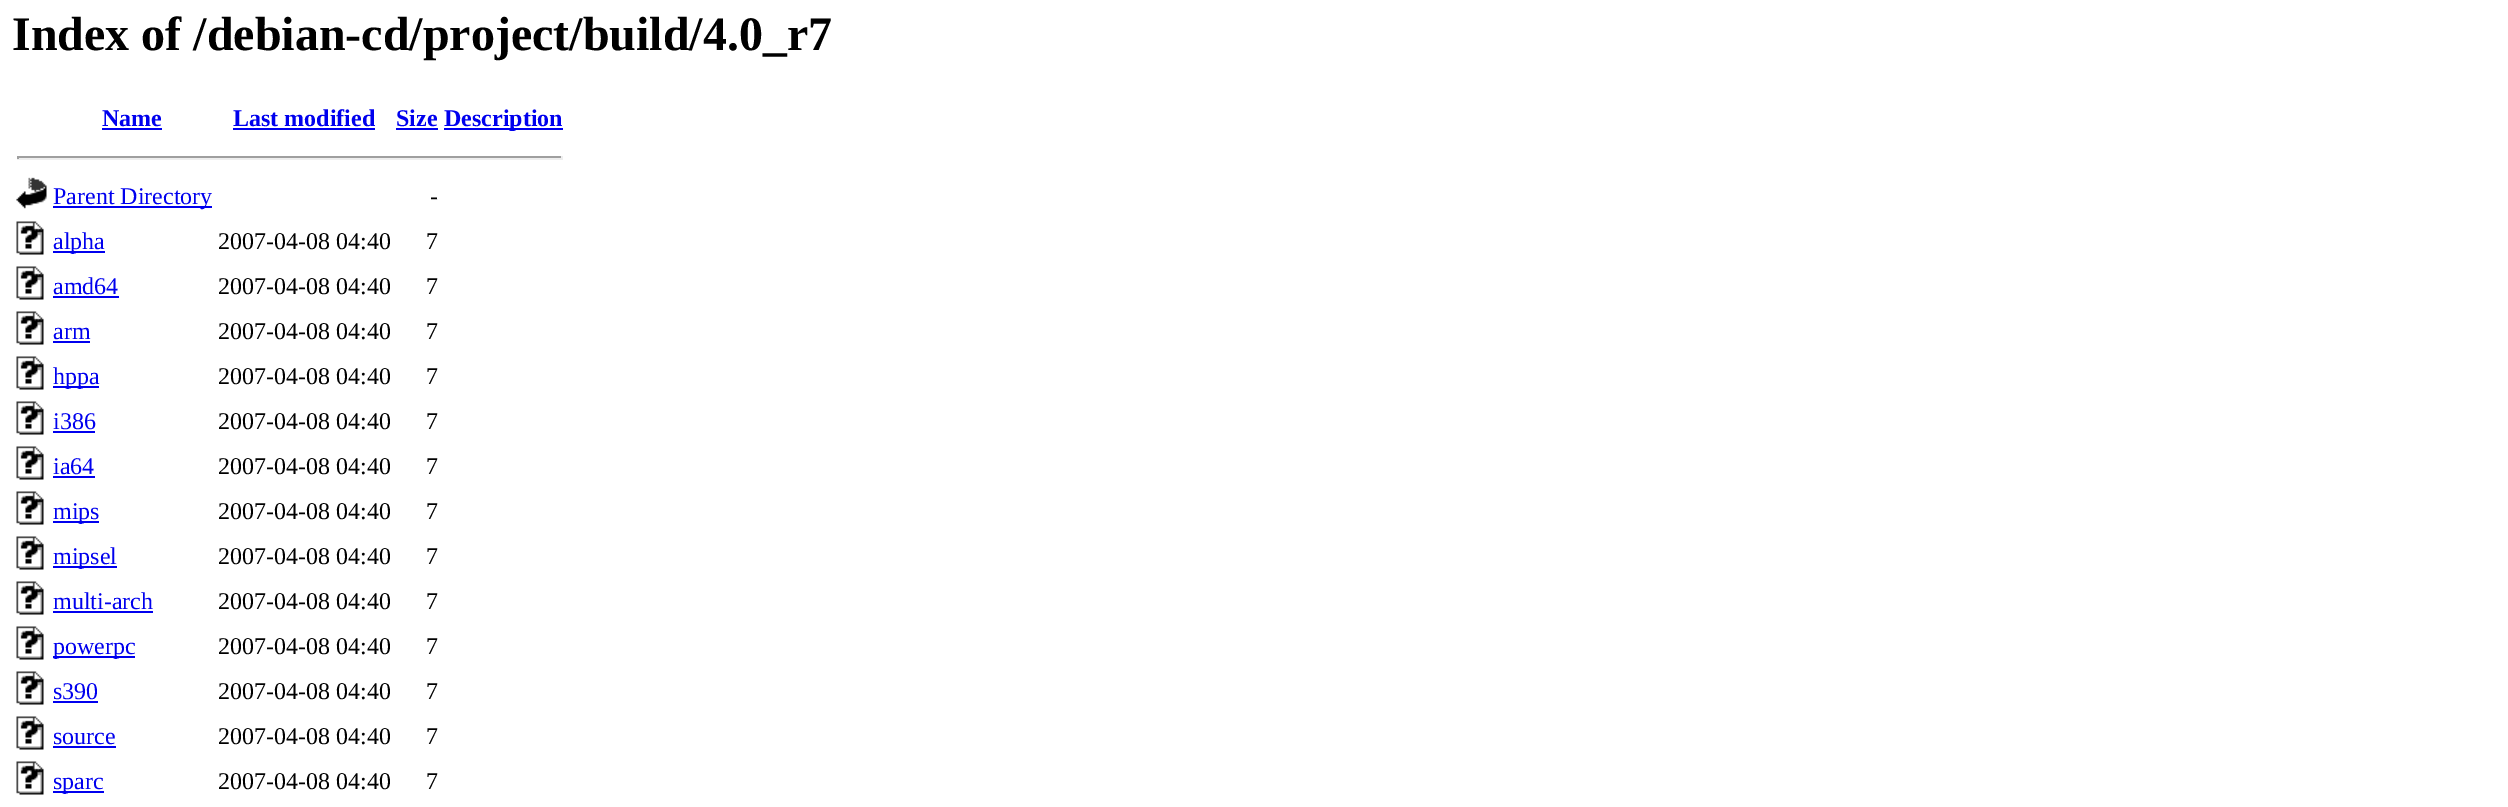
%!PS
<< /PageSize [2508 807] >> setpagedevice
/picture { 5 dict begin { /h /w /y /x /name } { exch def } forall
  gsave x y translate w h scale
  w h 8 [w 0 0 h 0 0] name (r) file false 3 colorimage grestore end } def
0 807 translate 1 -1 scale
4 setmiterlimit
1 setgray
0 0 2508 807 rectfill
/LiberationSerif-Bold [48 0 0 -48 0 0] selectfont
0 setgray
12 50 moveto (Index of /debian-cd/project/build/4.0_r7) show
/LiberationSerif-Bold [24 0 0 -24 0 0] selectfont
0 0 0.933 setrgbcolor
102 126 moveto (Name) show
102 128 60 2 rectfill
233 126 moveto (Last modified) show
233 128 142 2 rectfill
396 126 moveto (Size) show
396 128 42 2 rectfill
444 128 119 2 rectfill
444 126 moveto (Description) show
0.624 setgray
17 156 546 2 rectfill
0.933 setgray
561 156 2 3 rectfill
17 158 546 2 rectfill
0.624 setgray
17 156 2 3 rectfill
(img1.rgb) 16 177 31 32 picture
0 0 0.933 setrgbcolor
53 206 159 2 rectfill
/LiberationSerif-Regular [24 0 0 -24 0 0] selectfont
53 204 moveto (Parent Directory) show
0 setgray
430 204 moveto (-) show
(img2.rgb) 16 221 28 34 picture
0 0 0.933 setrgbcolor
53 251 52 2 rectfill
53 249 moveto (alpha) show
0 setgray
218 249 moveto (2007-04-08 04:40) show
426 249 moveto (7) show
(img2.rgb) 16 266 28 34 picture
0 0 0.933 setrgbcolor
53 294 moveto (amd64) show
53 296 66 2 rectfill
0 setgray
218 294 moveto (2007-04-08 04:40) show
426 294 moveto (7) show
(img2.rgb) 16 311 28 34 picture
0 0 0.933 setrgbcolor
53 339 moveto (arm) show
53 341 37 2 rectfill
0 setgray
218 339 moveto (2007-04-08 04:40) show
426 339 moveto (7) show
(img2.rgb) 16 356 28 34 picture
0 0 0.933 setrgbcolor
53 386 46 2 rectfill
53 384 moveto (hppa) show
0 setgray
218 384 moveto (2007-04-08 04:40) show
426 384 moveto (7) show
(img2.rgb) 16 401 28 34 picture
0 0 0.933 setrgbcolor
53 429 moveto (i386) show
53 431 42 2 rectfill
0 setgray
218 429 moveto (2007-04-08 04:40) show
426 429 moveto (7) show
(img2.rgb) 16 446 28 34 picture
0 0 0.933 setrgbcolor
53 474 moveto (ia64) show
53 476 42 2 rectfill
0 setgray
218 474 moveto (2007-04-08 04:40) show
426 474 moveto (7) show
(img2.rgb) 16 491 28 34 picture
0 0 0.933 setrgbcolor
53 521 46 2 rectfill
53 519 moveto (mips) show
0 setgray
218 519 moveto (2007-04-08 04:40) show
426 519 moveto (7) show
(img2.rgb) 16 536 28 34 picture
0 0 0.933 setrgbcolor
53 566 64 2 rectfill
53 564 moveto (mipsel) show
0 setgray
218 564 moveto (2007-04-08 04:40) show
426 564 moveto (7) show
(img2.rgb) 16 581 28 34 picture
0 0 0.933 setrgbcolor
53 609 moveto (multi-arch) show
53 611 100 2 rectfill
0 setgray
218 609 moveto (2007-04-08 04:40) show
426 609 moveto (7) show
(img2.rgb) 16 626 28 34 picture
0 0 0.933 setrgbcolor
53 656 82 2 rectfill
53 654 moveto (powerpc) show
0 setgray
218 654 moveto (2007-04-08 04:40) show
426 654 moveto (7) show
(img2.rgb) 16 671 28 34 picture
0 0 0.933 setrgbcolor
53 699 moveto (s390) show
53 701 45 2 rectfill
0 setgray
218 699 moveto (2007-04-08 04:40) show
426 699 moveto (7) show
(img2.rgb) 16 716 28 34 picture
0 0 0.933 setrgbcolor
53 744 moveto (source) show
53 746 63 2 rectfill
0 setgray
218 744 moveto (2007-04-08 04:40) show
426 744 moveto (7) show
(img2.rgb) 16 761 28 34 picture
0 0 0.933 setrgbcolor
53 791 51 2 rectfill
53 789 moveto (sparc) show
0 setgray
218 789 moveto (2007-04-08 04:40) show
426 789 moveto (7) show
showpage
